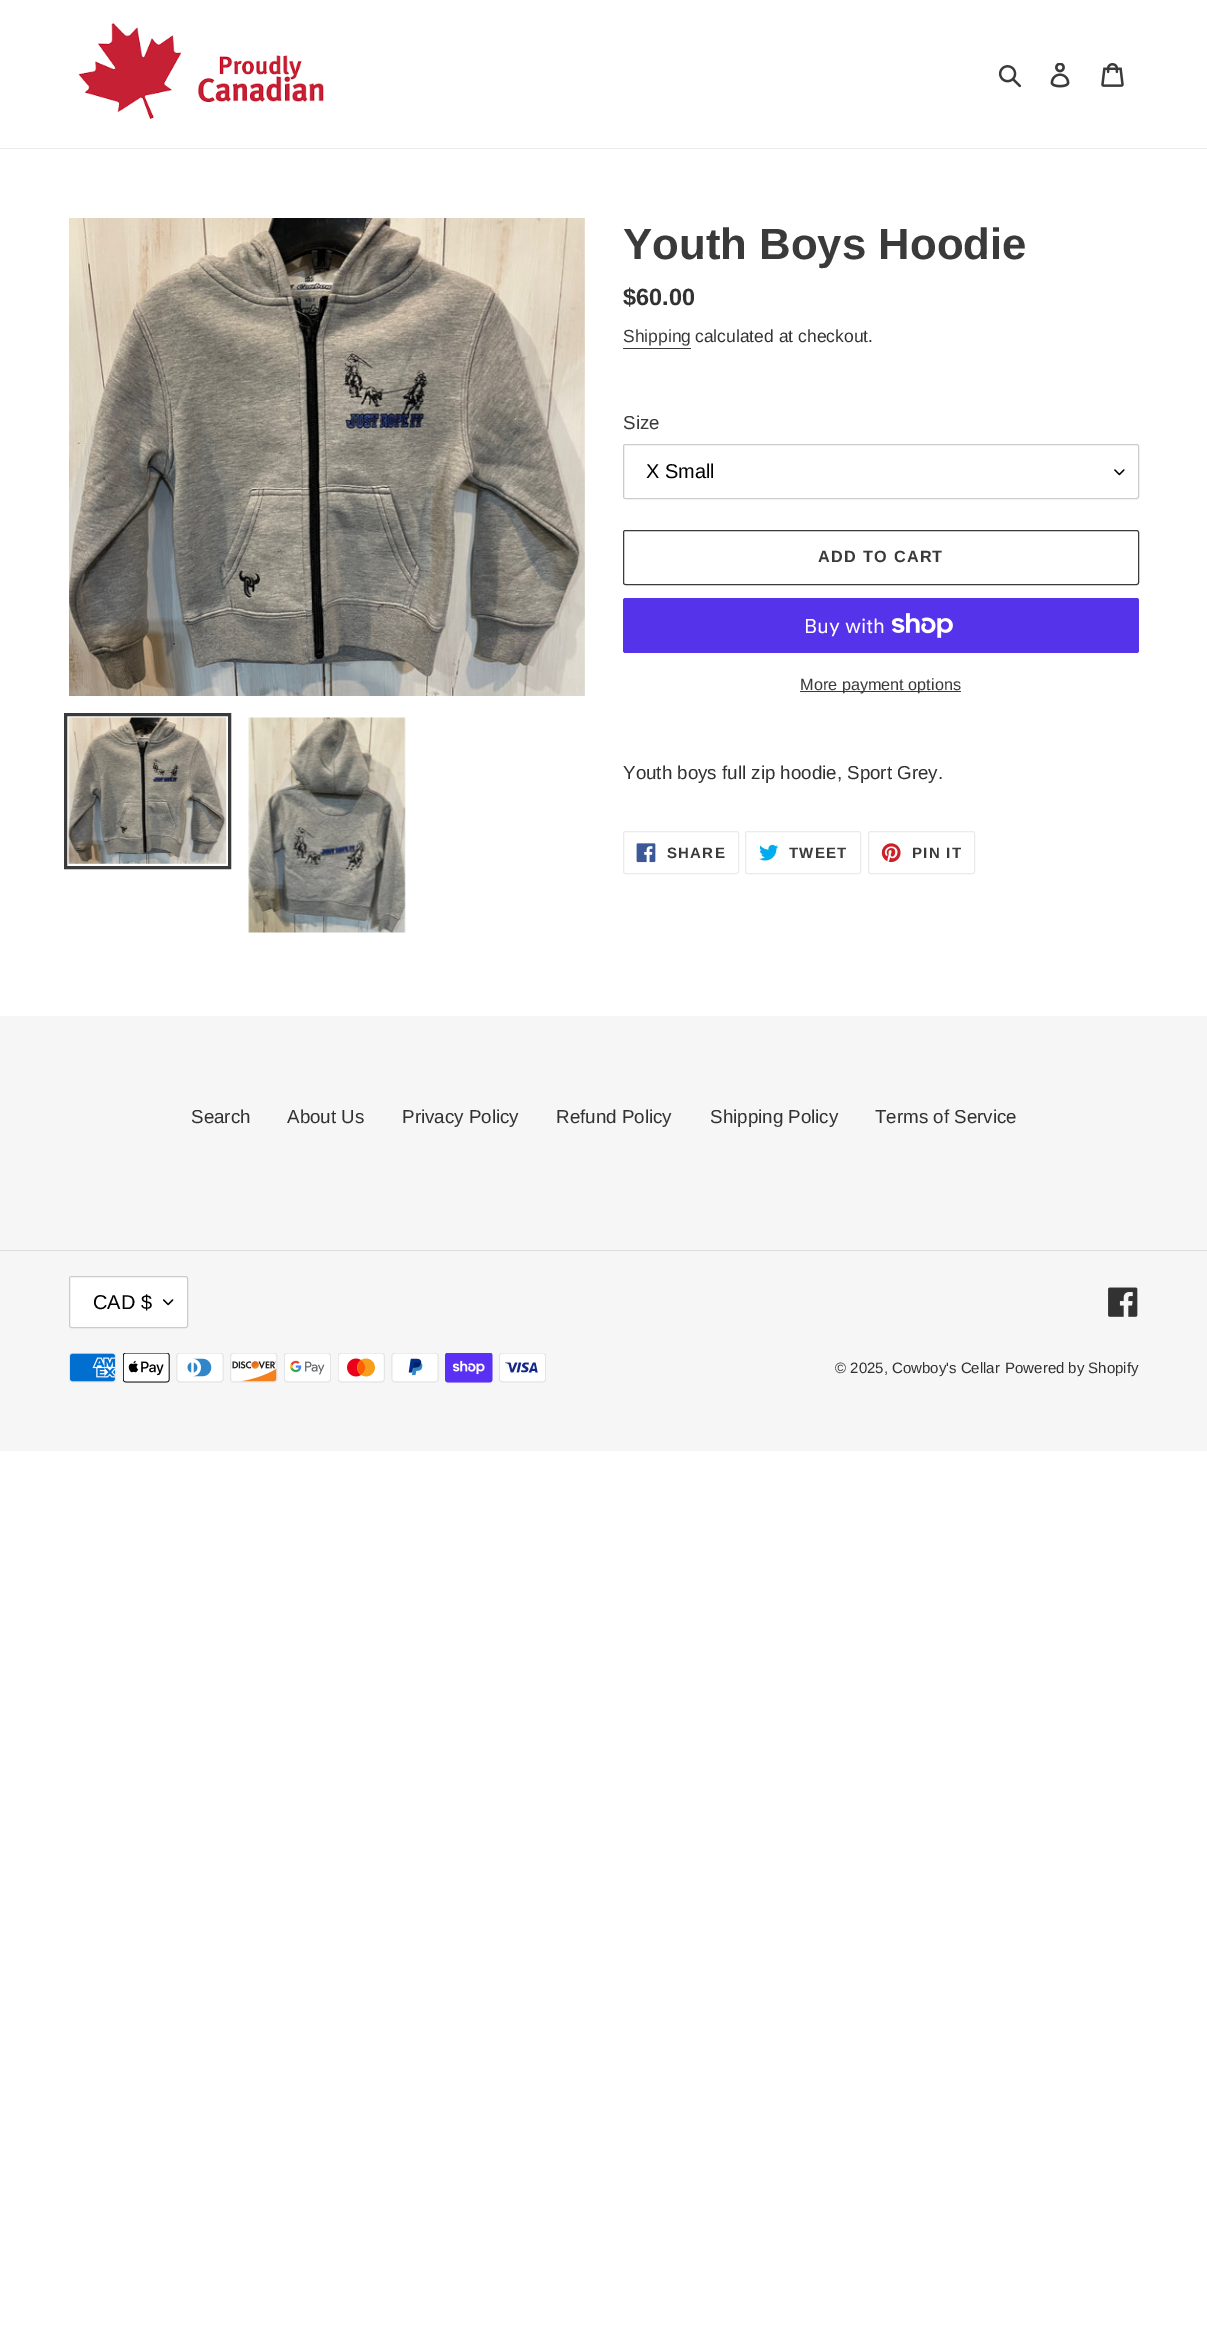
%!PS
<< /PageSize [1207 2335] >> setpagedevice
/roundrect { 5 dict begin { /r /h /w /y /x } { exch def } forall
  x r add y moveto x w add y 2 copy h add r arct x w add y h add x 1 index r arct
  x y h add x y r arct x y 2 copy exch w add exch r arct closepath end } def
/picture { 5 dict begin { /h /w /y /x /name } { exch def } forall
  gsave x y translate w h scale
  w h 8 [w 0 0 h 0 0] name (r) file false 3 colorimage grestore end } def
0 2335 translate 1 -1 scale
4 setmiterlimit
1 setgray
0 0 1207 2335 rectfill
0.922 setgray
0 148 1207 1 rectfill
(img1.rgb) 78 23 246 96 picture
(img2.rgb) 998 65 23 23 picture
(img3.rgb) 1050 63 20 25 picture
(img4.rgb) 1101 63 23 24 picture
(img5.rgb) 69 218 516 478 picture
0.227 setgray
3 setlinewidth
65.5 714.5 164 153 rectstroke
(img6.rgb) 68 717 159 147 picture
(img7.rgb) 248 717 158 216 picture
/LiberationSans-Bold [43.75 0 0 -43.75 0 0] selectfont
623 259 moveto (Youth Boys Hoodie) show
/LiberationSans-Bold [23.5 0 0 -23.5 0 0] selectfont
0.2 0.196 0.196 setrgbcolor
623 305 moveto ($60.00) show
/LiberationSans-Regular [17.5 0 0 -17.5 0 0] selectfont
0.227 setgray
623 342 moveto (Shipping) show
623 348 68 1 rectfill
0.2 0.196 0.196 setrgbcolor
695 342 moveto (calculated at checkout.) show
/LiberationSans-Regular [18.75 0 0 -18.75 0 0] selectfont
0.227 setgray
623 429 moveto (Size) show
(img8.rgb) 1114 469 11 7 picture
0.8 setgray
1 setlinewidth
623.5 444.5 515 54 2 roundrect stroke
/LiberationSans-Regular [20 0 0 -20 0 0] selectfont
0 setgray
646 478 moveto (X Small) show
0.227 setgray
623.5 530.5 515 54 2 roundrect stroke
/LiberationSans-Bold [16.25 0 0 -16.25 0 0] selectfont
818 562 moveto 1.25 0 (ADD TO CART) ashow
0.329 0.2 0.922 setrgbcolor
623 598 516 55 2.5 roundrect fill
/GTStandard-Regular [20 0 0 -20 0 0] selectfont
1 setgray
804 633 moveto (Buy with) show
(img9.rgb) 891 613 62 25 picture
0.227 setgray
800 691 161 1 rectfill
/LiberationSans-Regular [16.25 0 0 -16.25 0 0] selectfont
800 690 moveto (More payment options) show
/LiberationSans-Regular [18.75 0 0 -18.75 0 0] selectfont
0.2 0.196 0.196 setrgbcolor
623 779 moveto (Youth boys full zip hoodie, Sport Grey.) show
0.922 setgray
623.5 831.5 115 42 2 roundrect stroke
(img10.rgb) 636 843 20 20 picture
/LiberationSans-Bold [15 0 0 -15 0 0] selectfont
0.227 setgray
667 858 moveto 1.25 0 (SHARE) ashow
0.922 setgray
745.5 831.5 115 42 2 roundrect stroke
(img11.rgb) 759 844 20 17 picture
0.227 setgray
789 858 moveto 1.25 0 (TWEET) ashow
0.922 setgray
868.5 831.5 106 42 2 roundrect stroke
(img12.rgb) 881 843 20 20 picture
0.227 setgray
912 858 moveto 1.25 0 (PIN IT) ashow
0.965 setgray
0 1016 1207 435 rectfill
/LiberationSans-Regular [18.75 0 0 -18.75 0 0] selectfont
0.2 0.196 0.196 setrgbcolor
191 1123 moveto (Search) show
287 1123 moveto (About Us) show
402 1123 moveto (Privacy Policy) show
556 1123 moveto (Refund Policy) show
710 1123 moveto (Shipping Policy) show
875 1123 moveto (Terms of Service) show
0.867 setgray
0 1250 1207 1 rectfill
1 setgray
69 1276 119 52 2.5 roundrect fill
(img13.rgb) 163 1299 11 7 picture
0.8 setgray
69.5 1276.5 118 51 2 roundrect stroke
/LiberationSans-Regular [20 0 0 -20 0 0] selectfont
0 setgray
93 1309 moveto (CAD $) show
(img14.rgb) 1108 1287 30 30 picture
(img15.rgb) 69 1353 47 30 picture
(img16.rgb) 123 1353 47 30 picture
(img17.rgb) 176 1353 48 30 picture
(img18.rgb) 230 1353 48 30 picture
(img19.rgb) 284 1353 47 30 picture
(img20.rgb) 338 1353 47 30 picture
(img21.rgb) 391 1353 48 30 picture
(img22.rgb) 445 1353 48 30 picture
(img23.rgb) 499 1353 47 30 picture
/LiberationSans-Regular [15 0 0 -15 0 0] selectfont
0.2 0.196 0.196 setrgbcolor
835 1373 moveto (© 2025, Cowboy's Cellar) show
1005 1373 moveto (Powered by Shopify) show
showpage
